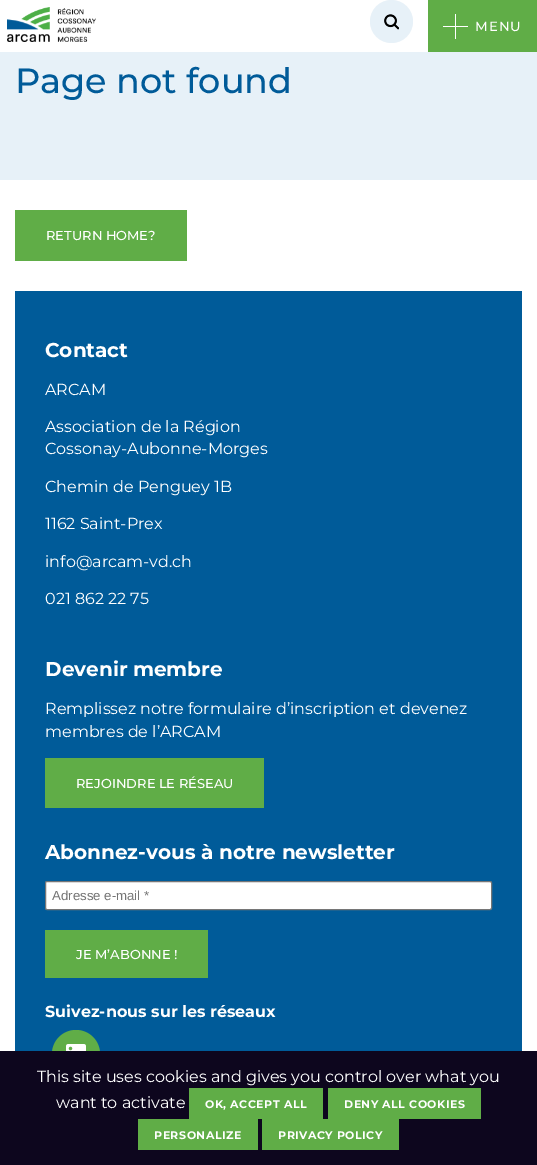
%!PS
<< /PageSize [537 1165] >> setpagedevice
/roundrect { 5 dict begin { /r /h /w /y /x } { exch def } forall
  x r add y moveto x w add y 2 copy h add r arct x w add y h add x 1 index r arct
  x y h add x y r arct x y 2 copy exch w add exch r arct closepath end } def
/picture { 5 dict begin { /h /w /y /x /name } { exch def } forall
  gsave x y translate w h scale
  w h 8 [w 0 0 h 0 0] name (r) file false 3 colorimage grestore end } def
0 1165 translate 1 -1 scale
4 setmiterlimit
1 setgray
0 0 537 1165 rectfill
(img1.rgb) 7 7 89 35 picture
0.906 0.945 0.973 setrgbcolor
newpath 391.5 21.5 21.5 0 360 arc closepath fill
(img2.rgb) 384 14 15 16 picture
0.376 0.678 0.278 setrgbcolor
428 0 109 52 rectfill
1 setgray
443 26 25 1 rectfill
455 14 1 25 rectfill
/Montserrat-Medium [13.25 0 0 -13.25 0 0] selectfont
475 31 moveto 1 0 (MENU) ashow
0.906 0.945 0.973 setrgbcolor
0 52 537 128 rectfill
/Montserrat-Medium [35 0 0 -35 0 0] selectfont
0 0.357 0.6 setrgbcolor
15 93 moveto (Page not found) show
0.376 0.678 0.278 setrgbcolor
15 210 172 51 rectfill
/Montserrat-Medium [13 0 0 -13 0 0] selectfont
1 setgray
46 240 moveto (RETURN HOME?) show
0 0.357 0.6 setrgbcolor
15 291 507 760 rectfill
/Montserrat-Bold [20 0 0 -20 0 0] selectfont
1 setgray
45 357 moveto (Contact) show
/Montserrat-Regular [16 0 0 -16 0 0] selectfont
45 395 moveto (ARCAM) show
45 432 moveto (Association de la Région) show
45 454 moveto (Cossonay-Aubonne-Morges) show
45 492 moveto (Chemin de Penguey 1B) show
45 529 moveto (1162 Saint-Prex) show
45 567 moveto (info@arcam-vd.ch) show
45 604 moveto (021 862 22 75) show
/Montserrat-Bold [20 0 0 -20 0 0] selectfont
45 676 moveto (Devenir membre) show
/Montserrat-Regular [16 0 0 -16 0 0] selectfont
45 714 moveto (Remplissez notre formulaire d’inscription et devenez) show
45 737 moveto (membres de l’ARCAM) show
0.376 0.678 0.278 setrgbcolor
45 758 219 50 rectfill
/Montserrat-Medium [13 0 0 -13 0 0] selectfont
1 setgray
76 788 moveto (REJOINDRE LE RÉSEAU) show
/Montserrat-Bold [20 0 0 -20 0 0] selectfont
45 859 moveto (Abonnez-vous à notre newsletter) show
45.5 881.5 446 28 1.5 roundrect gsave fill grestore
0.463 setgray
stroke
/LiberationSans-Regular [13.25 0 0 -13.25 0 0] selectfont
0.459 setgray
52 900 moveto (Adresse e-mail *) show
0.376 0.678 0.278 setrgbcolor
45 930 163 48 rectfill
/Montserrat-Medium [13 0 0 -13 0 0] selectfont
1 setgray
76 959 moveto (JE M’ABONNE !) show
/Montserrat-Bold [16 0 0 -16 0 0] selectfont
45 1017 moveto (Suivez-nous sur les réseaux) show
0.376 0.678 0.278 setrgbcolor
newpath 76 1054 24 0 360 arc closepath fill
(img3.rgb) 66 1044 20 7 picture
0.051 0.024 0.118 setrgbcolor
0 1051 537 114 rectfill
/Montserrat-Regular [16 0 0 -16 0 0] selectfont
1 setgray
37 1082 moveto (This site uses cookies and gives you control over what you) show
56 1108 moveto (want to activate) show
0.376 0.678 0.278 setrgbcolor
189 1088 134 31 rectfill
/Montserrat-Bold [11 0 0 -11 0 0] selectfont
1 setgray
205 1108 moveto 0.5 0 (OK, ACCEPT ALL) ashow
0.376 0.678 0.278 setrgbcolor
328 1088 153 31 rectfill
1 setgray
344 1108 moveto 0.5 0 (DENY ALL COOKIES) ashow
0.376 0.678 0.278 setrgbcolor
138 1119 120 31 rectfill
1 setgray
154 1139 moveto 0.5 0 (PERSONALIZE) ashow
0.376 0.678 0.278 setrgbcolor
262 1119 137 31 rectfill
1 setgray
278 1139 moveto 0.5 0 (PRIVACY POLICY) ashow
showpage
